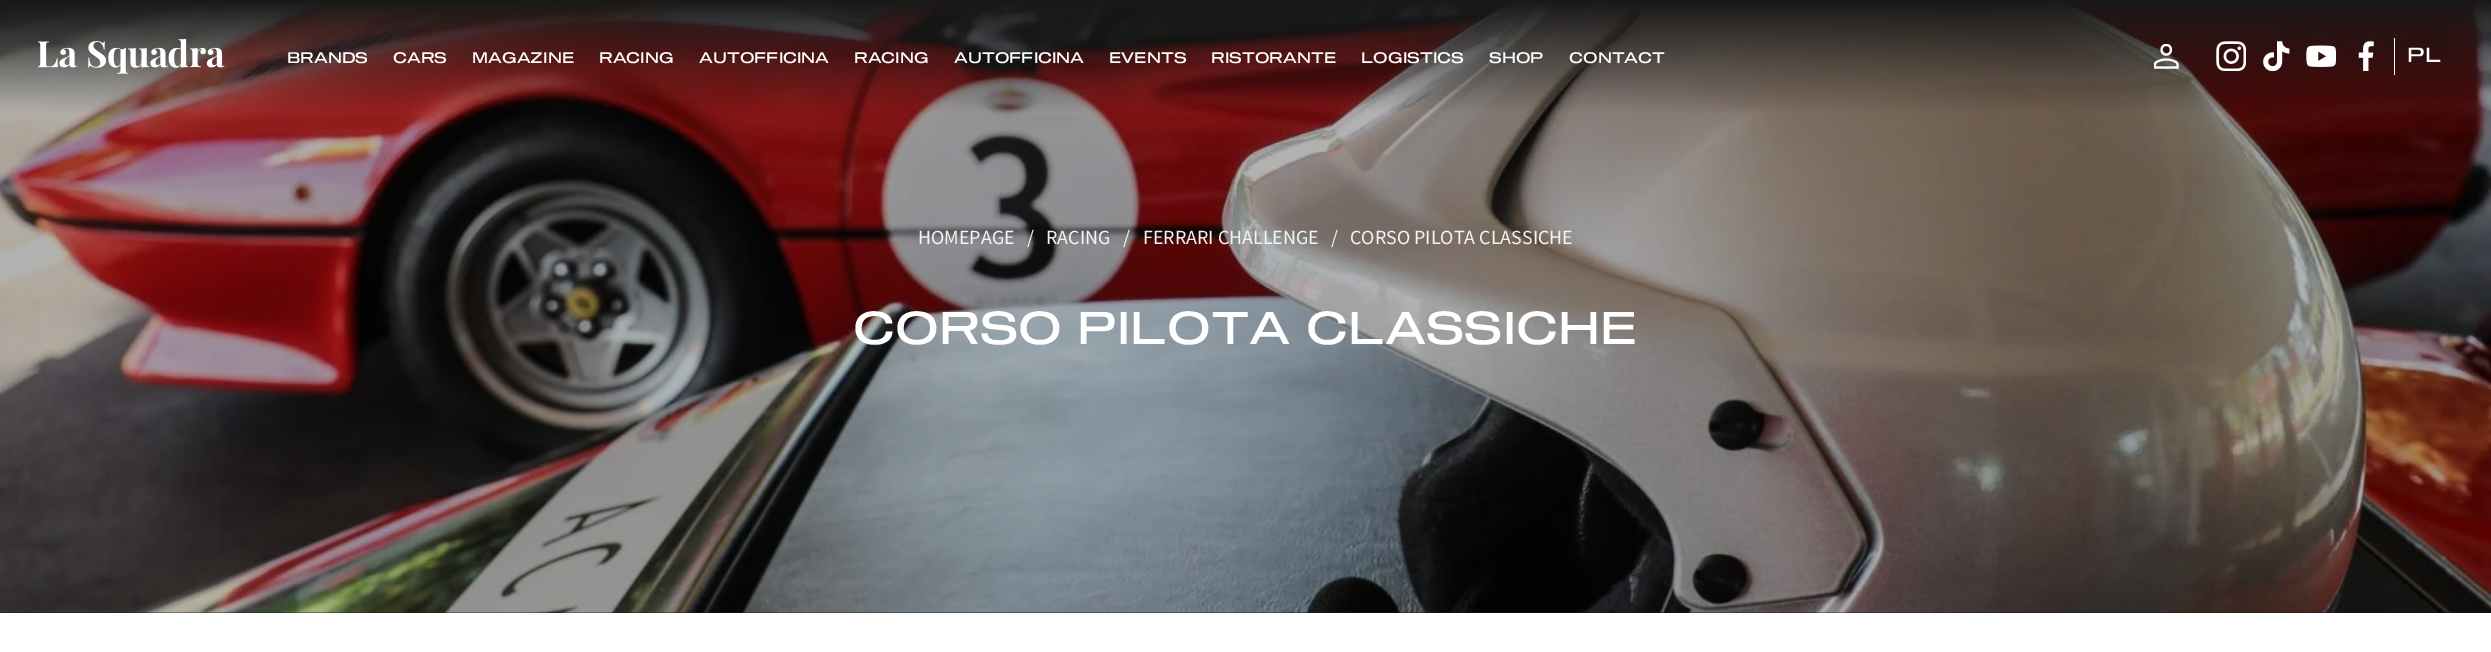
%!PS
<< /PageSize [2491 652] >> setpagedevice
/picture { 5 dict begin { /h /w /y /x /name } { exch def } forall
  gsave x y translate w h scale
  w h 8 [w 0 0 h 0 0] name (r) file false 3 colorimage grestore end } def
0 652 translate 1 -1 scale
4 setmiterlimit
1 setgray
0 0 2491 652 rectfill
0.094 setgray
0 612 2491 1 rectfill
(img7.rgb) 0 0 2491 613 picture
(img1.rgb) 38 39 187 35 picture
/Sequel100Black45-Black [15 0 0 -15 0 0] selectfont
1 setgray
287 63 moveto (BRANDS) show
393 63 moveto (CARS) show
472 63 moveto (MAGAZINE) show
599 63 moveto (RACING) show
699 63 moveto (AUTOFFICINA) show
854 63 moveto (RACING) show
954 63 moveto (AUTOFFICINA) show
1109 63 moveto (EVENTS) show
1211 63 moveto (RISTORANTE) show
1361 63 moveto (LOGISTICS) show
1489 63 moveto (SHOP) show
1569 63 moveto (CONTACT) show
(img2.rgb) 2154 44 25 25 picture
(img3.rgb) 2216 41 30 30 picture
(img4.rgb) 2263 41 27 30 picture
(img5.rgb) 2306 45 30 22 picture
(img6.rgb) 2358 41 16 30 picture
2394 38 1 37 rectfill
/Sequel100Black45-Black [20 0 0 -20 0 0] selectfont
2407 62 moveto (PL) show
/SourceSansPro-Regular [20 0 0 -20 0 0] selectfont
0.957 setgray
918 244 moveto (HOMEPAGE) show
1027 244 moveto (/) show
1046 244 moveto (RACING) show
1123 244 moveto (/) show
1143 244 moveto (FERRARI CHALLENGE) show
1331 244 moveto (/) show
1350 244 moveto (CORSO PILOTA CLASSICHE) show
/Sequel100Black45-Black [45 0 0 -45 0 0] selectfont
1 setgray
853 344 moveto (CORSO PILOTA CLASSICHE) show
showpage
